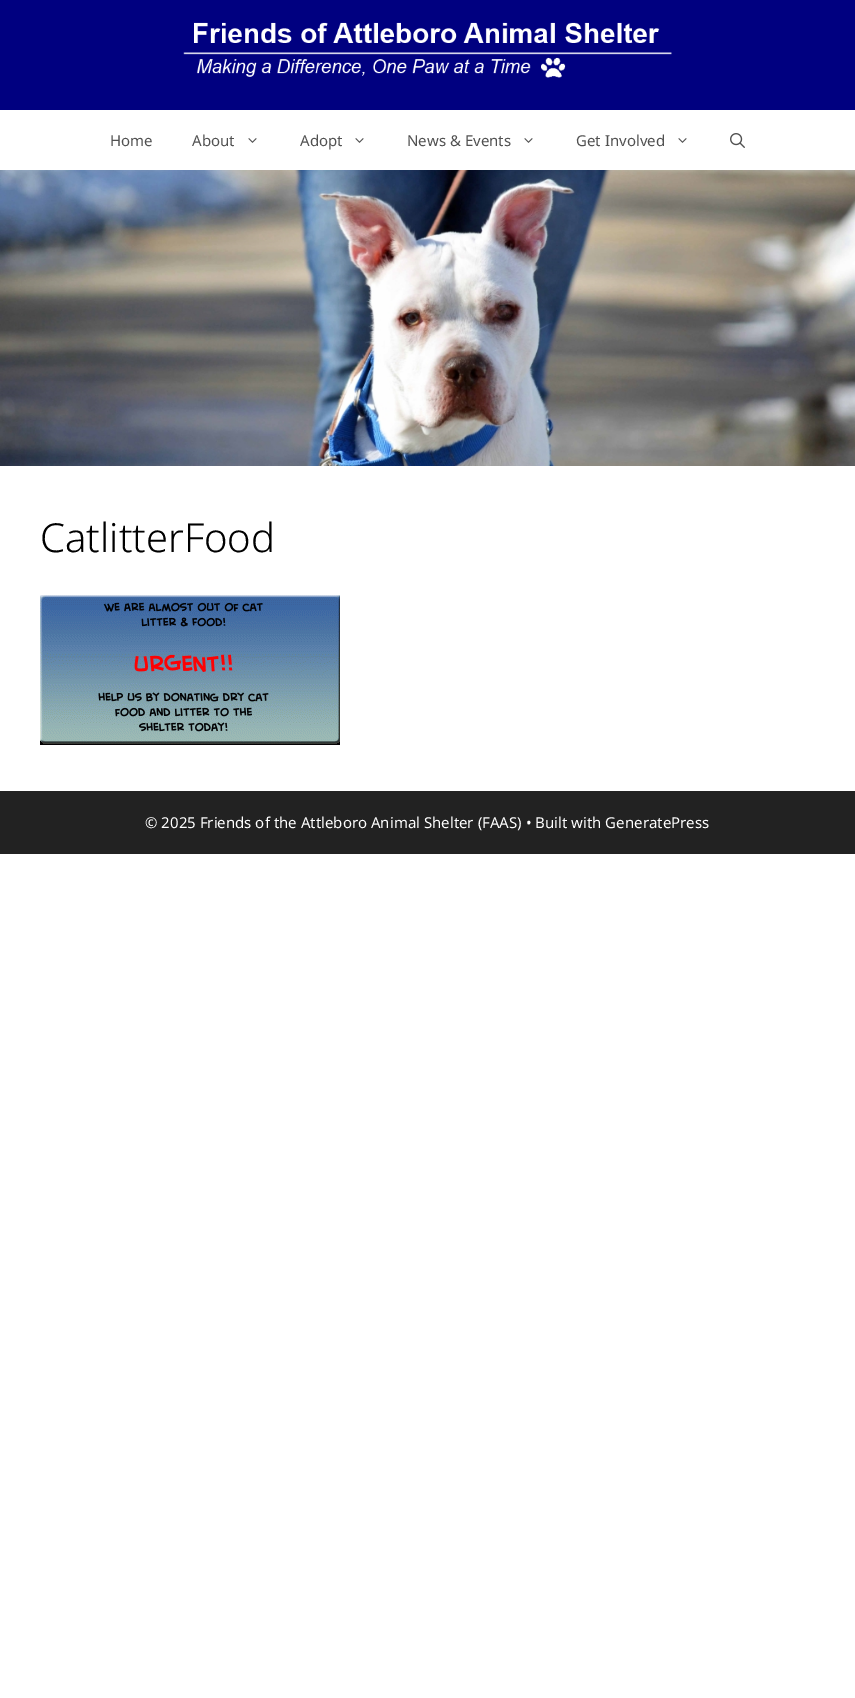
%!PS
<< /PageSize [855 1698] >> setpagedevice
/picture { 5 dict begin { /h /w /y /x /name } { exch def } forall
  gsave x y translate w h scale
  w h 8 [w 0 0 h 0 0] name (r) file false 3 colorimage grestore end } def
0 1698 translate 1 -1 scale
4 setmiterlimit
1 setgray
0 0 855 1698 rectfill
0 0 0.502 setrgbcolor
0 0 855 110 rectfill
(img1.rgb) 183 22 489 56 picture
/NotoSans-Regular [15 0 0 -15 0 0] selectfont
0.318 setgray
110 146 moveto (Home) show
192 146 moveto (About) show
(img2.rgb) 248 138 9 5 picture
300 146 moveto (Adopt) show
(img2.rgb) 355 138 9 5 picture
407 146 moveto (News & Events) show
(img2.rgb) 524 138 9 5 picture
576 146 moveto (Get Involved) show
(img2.rgb) 678 138 9 5 picture
(img3.rgb) 730 133 15 15 picture
(img4.rgb) 0 170 855 296 picture
/NotoSans-Light [40 0 0 -40 0 0] selectfont
0 setgray
40 552 moveto (CatlitterFood) show
(img5.rgb) 40 595 300 150 picture
0.133 setgray
0 791 855 63 rectfill
/NotoSans-Regular [15 0 0 -15 0 0] selectfont
1 setgray
145 828 moveto (© 2025 Friends of the Attleboro Animal Shelter \(FAAS\) • Built with GeneratePress) show
showpage
